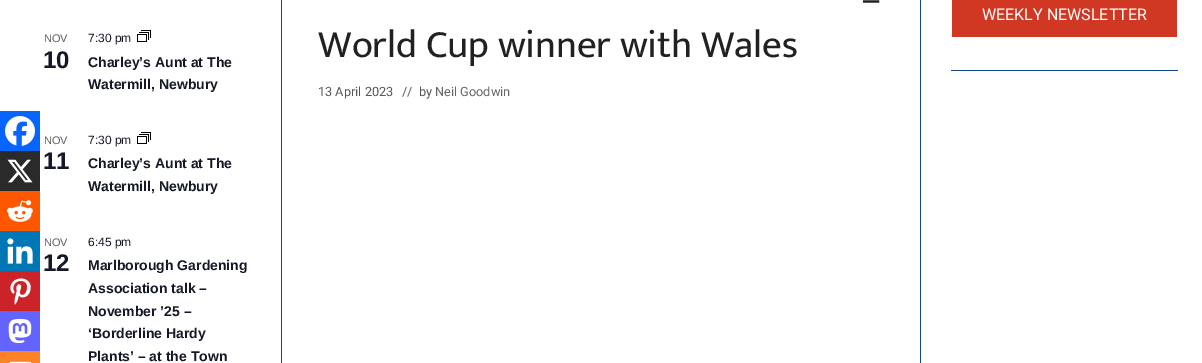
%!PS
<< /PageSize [1202 363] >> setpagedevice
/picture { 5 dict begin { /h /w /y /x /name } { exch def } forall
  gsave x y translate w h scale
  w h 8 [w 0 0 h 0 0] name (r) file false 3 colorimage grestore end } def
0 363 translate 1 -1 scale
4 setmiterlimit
1 setgray
0 0 1202 363 rectfill
/MuktaVaani-Regular [39 0 0 -39 0 0] selectfont
0.129 setgray
861 10 moveto (–) show
318 57 moveto (World Cup winner with Wales) show
/Roboto-Regular [12.75 0 0 -12.75 0 0] selectfont
0.333 setgray
318 96 moveto (13 April 2023) show
402 96 moveto (//  by) show
0.4 setgray
435 96 moveto (Neil Goodwin) show
0.027 0.396 0.996 setrgbcolor
0 111 40 40 rectfill
(img1.rgb) 5 116 30 30 picture
0.165 setgray
0 151 40 40 rectfill
(img2.rgb) 7 159 26 24 picture
1 0.341 0 setrgbcolor
0 191 40 40 rectfill
(img3.rgb) 7 200 26 22 picture
0 0.467 0.71 setrgbcolor
0 231 40 40 rectfill
(img4.rgb) 7 238 26 26 picture
0.8 0.137 0.161 setrgbcolor
0 271 40 40 rectfill
(img5.rgb) 10 278 21 27 picture
0.388 0.392 1 setrgbcolor
0 311 40 40 rectfill
(img6.rgb) 8 318 24 26 picture
1 0.51 0.149 setrgbcolor
0 351 40 12 rectfill
(img7.rgb) 9 361 23 2 picture
0.078 0.271 0.561 setrgbcolor
920 0 1 363 rectfill
0.82 0.22 0.137 setrgbcolor
952 0 225 37 rectfill
/Roboto-Regular [16 0 0 -16 0 0] selectfont
1 setgray
982 20 moveto (WEEKLY NEWSLETTER) show
0.078 0.271 0.561 setrgbcolor
951 70 227 1 rectfill
281 0 1 363 rectfill
/LiberationSans-Regular [11 0 0 -11 0 0] selectfont
0.365 setgray
44 42 moveto (NOV) show
/LiberationSans-Bold [24 0 0 -24 0 0] selectfont
0.078 0.094 0.153 setrgbcolor
43 68 moveto (10) show
/LiberationSans-Regular [12 0 0 -12 0 0] selectfont
88 42 moveto (7:30 pm) show
(img8.rgb) 137 30 14 12 picture
/LiberationSans-Bold [14 0 0 -14 0 0] selectfont
88 67 moveto (Charley’s Aunt at The) show
88 89 moveto (Watermill, Newbury) show
/LiberationSans-Regular [11 0 0 -11 0 0] selectfont
0.365 setgray
44 144 moveto (NOV) show
/LiberationSans-Bold [24 0 0 -24 0 0] selectfont
0.078 0.094 0.153 setrgbcolor
43 169 moveto (11) show
/LiberationSans-Regular [12 0 0 -12 0 0] selectfont
88 144 moveto (7:30 pm) show
(img8.rgb) 137 132 14 12 picture
/LiberationSans-Bold [14 0 0 -14 0 0] selectfont
88 168 moveto (Charley’s Aunt at The) show
88 191 moveto (Watermill, Newbury) show
/LiberationSans-Regular [11 0 0 -11 0 0] selectfont
0.365 setgray
44 246 moveto (NOV) show
/LiberationSans-Bold [24 0 0 -24 0 0] selectfont
0.078 0.094 0.153 setrgbcolor
43 271 moveto (12) show
/LiberationSans-Regular [12 0 0 -12 0 0] selectfont
88 246 moveto (6:45 pm) show
/LiberationSans-Bold [14 0 0 -14 0 0] selectfont
88 270 moveto (Marlborough Gardening) show
88 293 moveto (Association talk –) show
88 316 moveto (November ’25 –) show
88 338 moveto (‘Borderline Hardy) show
88 361 moveto (Plants’ – at the Town) show
showpage
